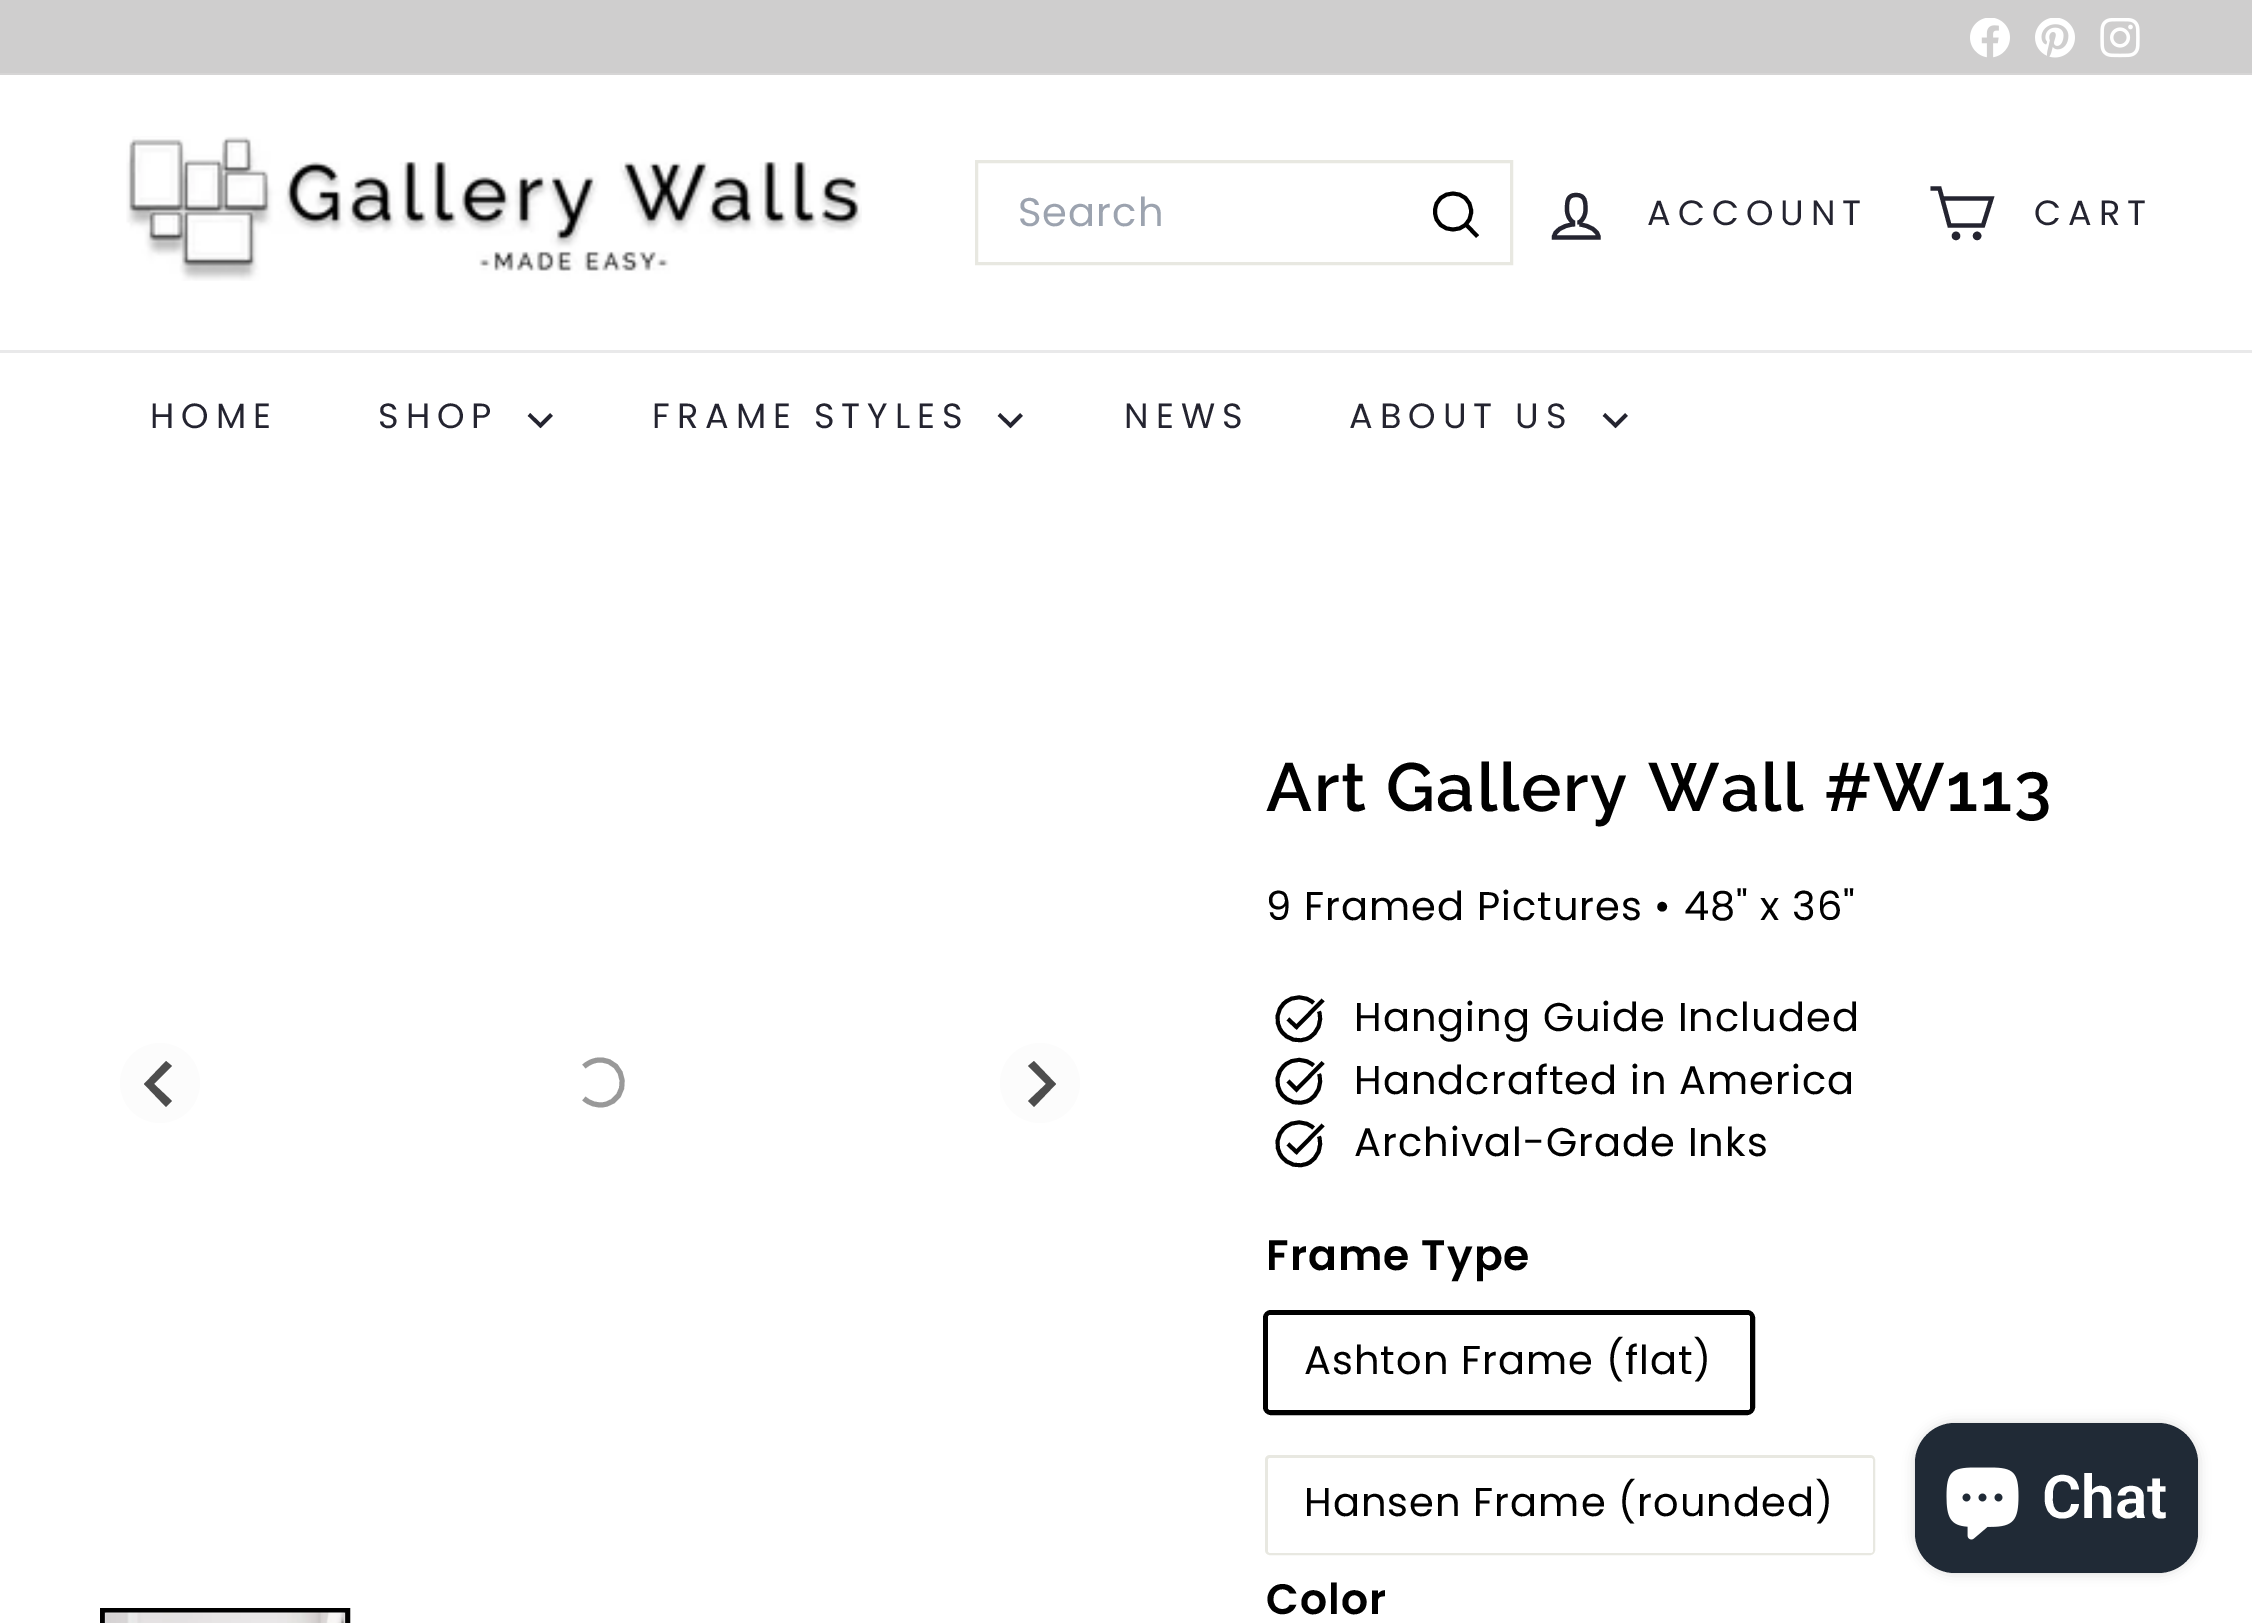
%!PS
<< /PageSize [2252 1623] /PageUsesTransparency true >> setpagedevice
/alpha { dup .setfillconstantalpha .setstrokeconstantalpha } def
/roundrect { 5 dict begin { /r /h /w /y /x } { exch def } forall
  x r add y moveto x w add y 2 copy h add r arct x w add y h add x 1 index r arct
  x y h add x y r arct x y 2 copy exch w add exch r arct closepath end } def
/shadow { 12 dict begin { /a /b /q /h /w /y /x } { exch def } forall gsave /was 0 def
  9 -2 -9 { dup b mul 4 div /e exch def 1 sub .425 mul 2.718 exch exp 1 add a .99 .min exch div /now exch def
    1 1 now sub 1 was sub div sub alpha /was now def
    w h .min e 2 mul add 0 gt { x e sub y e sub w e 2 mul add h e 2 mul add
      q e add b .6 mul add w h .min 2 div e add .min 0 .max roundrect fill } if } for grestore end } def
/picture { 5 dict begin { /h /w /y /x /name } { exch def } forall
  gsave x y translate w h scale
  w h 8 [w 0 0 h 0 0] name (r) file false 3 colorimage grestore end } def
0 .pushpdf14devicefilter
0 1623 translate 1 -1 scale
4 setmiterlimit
1 setgray
0 0 2252 1623 rectfill
0.812 0.808 0.808 setrgbcolor
0 0 2252 73 rectfill
0.839 0.835 0.835 setrgbcolor
0 73 2252 2 rectfill
(img1.rgb) 1970 18 40 40 picture
(img2.rgb) 2035 18 40 40 picture
(img3.rgb) 2100 18 40 40 picture
(img4.rgb) 126 136 736 145 picture
0.91 0.91 0.882 setrgbcolor
3 setlinewidth
976.5 161.5 535 102 rectstroke
/Poppins-Regular [40 0 0 -40 0 0] selectfont
0.612 0.639 0.686 setrgbcolor
1018 226 moveto 1 0 (Search) ashow
0 setgray
3.9 setlinewidth
newpath 1471 211.5 moveto 1471 235.5 1435 235.5 1435 211.5 curveto 1435 187.5 1471 187.5 1471 211.5 curveto 1477.5 236.5 moveto 1466 224.5 lineto stroke
0.141 0.141 0.188 setrgbcolor
4.2 setlinewidth
newpath 1579.5 224.5 moveto 1579.5 222 lineto 1583 220 1585.5 215 1585.5 210 curveto 1585.5 202 1585.5 195 1576 195 curveto 1567 195 1567 202 1567 210 curveto 1567 215 1569.5 220 1573 222 curveto 1573 224.5 lineto 1562.5 225.5 1554 231 1554 237.5 curveto 1598.5 237.5 lineto 1598.5 231 1590 225.5 1579.5 224.5 curveto stroke
/Poppins-Regular [35 0 0 -35 0 0] selectfont
1647 225 moveto 7 0 (ACCOUNT) ashow
newpath 1942.5 198.5 moveto 1991.5 198.5 lineto 1983 225.5 lineto 1949.5 225.5 lineto 1939.5 188.5 lineto 1930.5 188.5 lineto stroke
newpath 1956 235.9 2.1 0 360 arc closepath stroke
newpath 1977.1 235.9 2.1 0 360 arc closepath stroke
2034 225 moveto 7 0 (CART) ashow
0.914 0.914 0.918 setrgbcolor
0 350 2252 3 rectfill
0.141 0.141 0.188 setrgbcolor
150 428 moveto 7 0 (HOME) ashow
378 428 moveto 7 0 (SHOP) ashow
3.6 setlinewidth
newpath 529 414.5 moveto 540.5 425.5 lineto 551.5 414.5 lineto stroke
652 428 moveto 7 0 (FRAME STYLES) ashow
newpath 999 414.5 moveto 1010.5 425.5 lineto 1021.5 414.5 lineto stroke
1124 428 moveto 7 0 (NEWS) ashow
1349 428 moveto 7 0 (ABOUT US) ashow
newpath 1604 414.5 moveto 1615.5 425.5 lineto 1626.5 414.5 lineto stroke
0.988 setgray
newpath 160 1083 40 0 360 arc closepath fill
0.302 setgray
newpath 166 1061 moveto 172 1066 lineto 154 1084 lineto 172 1101 lineto 166 1107 lineto 144 1084 lineto closepath fill
0.988 setgray
newpath 1040 1083 40 0 360 arc closepath fill
0.302 setgray
newpath 1034 1061 moveto 1028 1066 lineto 1046 1084 lineto 1028 1101 lineto 1034 1107 lineto 1056 1084 lineto closepath fill
0.6 setgray
5 setlinewidth
newpath 584 1066.5 moveto 588.5 1062.5 594 1060 600 1060 curveto 627 1060 630.5 1099.5 604.5 1104.5 curveto 597 1106 589.5 1103.5 584 1098.5 curveto stroke
0 setgray
102.5 1610.5 245 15 rectstroke
(img5.rgb) 104 1612 242 11 picture
/Raleway-SemiBold [68 0 0 -68 0 0] selectfont
1266 811 moveto 1.7 0 (Art Gallery Wall #W113) ashow
/Poppins-Regular [40 0 0 -40 0 0] selectfont
1266 920 moveto 1 0 (9 Framed Pictures • 48" x 36") ashow
3.9 setlinewidth
newpath 1319 1011.5 moveto 1322.5 1021.5 1318 1033 1308.5 1038 curveto 1299 1043 1287 1040 1281 1030.5 curveto 1275 1021.5 1276.5 1009.5 1285 1002.5 curveto 1293 995.5 1305.5 995.5 1313.5 1003 curveto 1288 1019 moveto 1296.5 1027 lineto 1323 1000 lineto stroke
1354 1031 moveto 1 0 (Hanging Guide Included) ashow
newpath 1319 1074 moveto 1322.5 1084 1318 1095.5 1308.5 1100.5 curveto 1299 1105.5 1287 1102.5 1281 1093 curveto 1275 1084 1276.5 1072 1285 1065 curveto 1293 1058 1305.5 1058 1313.5 1065.5 curveto 1288 1081 moveto 1296.5 1089.5 lineto 1323 1062.5 lineto stroke
1354 1094 moveto 1 0 (Handcrafted in America) ashow
newpath 1319 1136.5 moveto 1322.5 1146.5 1318 1158 1308.5 1163 curveto 1299 1168 1287 1165 1281 1155.5 curveto 1275 1146.5 1276.5 1134.5 1285 1127.5 curveto 1293 1120.5 1305.5 1120.5 1313.5 1128 curveto 1288 1144 moveto 1296.5 1152 lineto 1323 1125 lineto stroke
1354 1156 moveto 1 0 (Archival-Grade Inks) ashow
/Poppins-SemiBold [42.5 0 0 -42.5 0 0] selectfont
1266 1270 moveto 1 0 (Frame Type) ashow
5 setlinewidth
1265.5 1312.5 487 100 5.5 roundrect stroke
1 setgray
1268 1315 482 95 2.5 roundrect fill
/Poppins-Regular [40 0 0 -40 0 0] selectfont
0 setgray
1304 1374 moveto 1 0 (Ashton Frame \(flat\)) ashow
0.91 0.91 0.882 setrgbcolor
3 setlinewidth
1266.5 1456.5 607 97 3.5 roundrect stroke
1 setgray
1268 1458 605 95 2.5 roundrect fill
0 setgray
1304 1516 moveto 1 0 (Hansen Frame \(rounded\)) ashow
/Poppins-SemiBold [42.5 0 0 -42.5 0 0] selectfont
1266 1614 moveto 1 0 (Color) ashow
1915 1423 283 150 40 6 0.15 shadow
0.125 0.165 0.212 setrgbcolor
1915 1423 283 150 40 roundrect fill
(img6.rgb) 1946 1467 73 73 picture
/Roboto-SemiBold [60 0 0 -60 0 0] selectfont
1 setgray
2042 1518 moveto (Chat) show
.poppdf14devicefilter showpage
